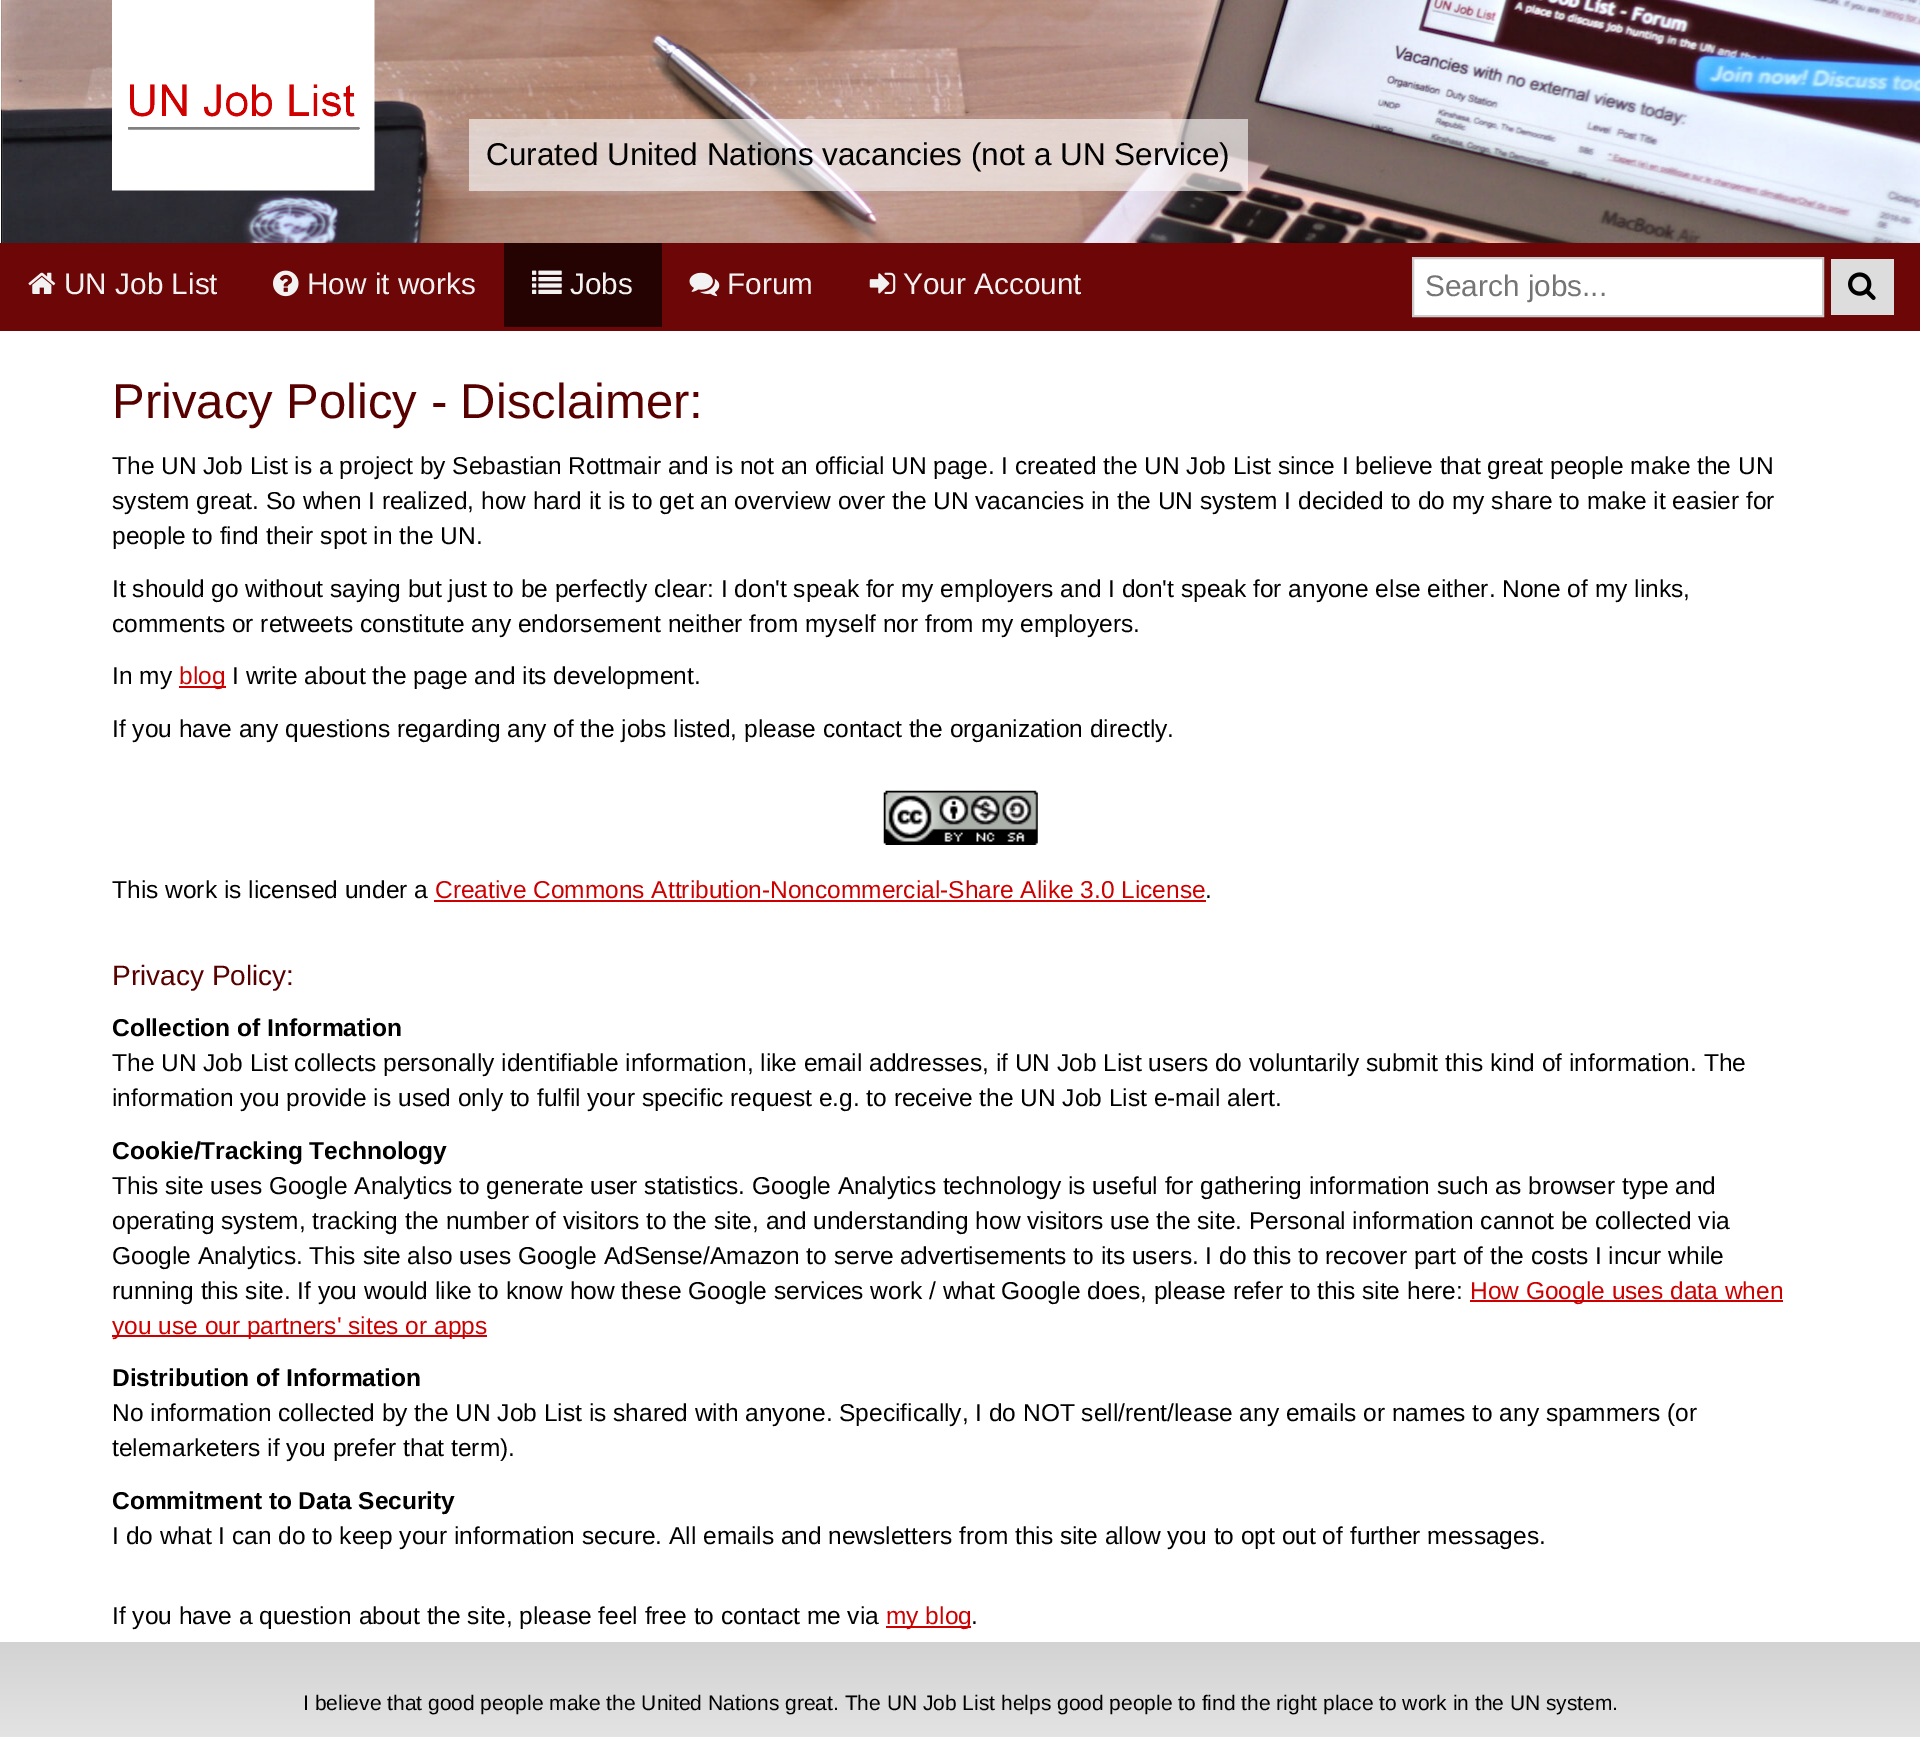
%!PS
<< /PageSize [1920 1737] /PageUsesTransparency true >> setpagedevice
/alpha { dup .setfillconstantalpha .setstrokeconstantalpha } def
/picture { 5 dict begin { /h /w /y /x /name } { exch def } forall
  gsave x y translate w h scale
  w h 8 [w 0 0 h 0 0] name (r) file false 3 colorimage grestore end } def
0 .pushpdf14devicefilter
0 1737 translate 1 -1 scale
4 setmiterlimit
1 setgray
0 0 1920 1737 rectfill
(img1.rgb) 0 0 1920 243 picture
(img2.rgb) 112 0 263 191 picture
0.6 alpha
469 119 779 72 rectfill
/LiberationSans-Regular [31.5 0 0 -31.5 0 0] selectfont
1 alpha
0 setgray
486 165 moveto (Curated United Nations vacancies \(not a UN Service\)) show
0.427 0.024 0.024 setrgbcolor
0 243 1920 88 rectfill
(img3.rgb) 28 272 28 22 picture
/LiberationSans-Regular [29.75 0 0 -29.75 0 0] selectfont
0.949 setgray
64 294 moveto (UN Job List) show
(img4.rgb) 273 270 26 27 picture
307 294 moveto (How it works) show
0.149 0.012 0.012 setrgbcolor
504 243 158 84 rectfill
(img5.rgb) 532 270 30 24 picture
0.949 setgray
570 294 moveto (Jobs) show
(img6.rgb) 689 272 31 25 picture
727 294 moveto (Forum) show
(img7.rgb) 869 272 27 22 picture
903 294 moveto (Your Account) show
1 setgray
newpath 1413 258 moveto 1823 258 lineto 1823 316 lineto 1413 316 lineto closepath gsave fill grestore
0.8 setgray
2 setlinewidth
stroke
0.459 setgray
1425 296 moveto (Search jobs...) show
0.867 setgray
1831 259 63 56 rectfill
(img8.rgb) 1848 272 28 28 picture
/LiberationSans-Regular [49 0 0 -49 0 0] selectfont
0.345 0 0 setrgbcolor
112 418 moveto (Privacy Policy - Disclaimer:) show
/LiberationSans-Regular [24.5 0 0 -24.5 0 0] selectfont
0 setgray
112 474 moveto (The UN Job List is a project by Sebastian Rottmair and is not an official UN page. I created the UN Job List since I believe that great people make the UN) show
112 509 moveto (system great. So when I realized, how hard it is to get an overview over the UN vacancies in the UN system I decided to do my share to make it easier for) show
112 544 moveto (people to find their spot in the UN.) show
112 597 moveto (It should go without saying but just to be perfectly clear: I don't speak for my employers and I don't speak for anyone else either. None of my links,) show
112 632 moveto (comments or retweets constitute any endorsement neither from myself nor from my employers.) show
112 684 moveto (In my) show
0.8 0 0 setrgbcolor
179 686 47 2 rectfill
179 684 moveto (blog) show
0 setgray
232 684 moveto (I write about the page and its development.) show
112 737 moveto (If you have any questions regarding any of the jobs listed, please contact the organization directly.) show
(img9.rgb) 883 790 155 55 picture
112 898 moveto (This work is licensed under a) show
0.8 0 0 setrgbcolor
435 898 moveto (Creative Commons Attribution-Noncommercial-Share Alike 3.0 License) show
434 900 772 2 rectfill
0 setgray
1205 898 moveto (.) show
/LiberationSans-Regular [28 0 0 -28 0 0] selectfont
0.345 0 0 setrgbcolor
112 985 moveto (Privacy Policy:) show
/LiberationSans-Bold [24.5 0 0 -24.5 0 0] selectfont
0 setgray
112 1036 moveto (Collection of Information) show
/LiberationSans-Regular [24.5 0 0 -24.5 0 0] selectfont
112 1071 moveto (The UN Job List collects personally identifiable information, like email addresses, if UN Job List users do voluntarily submit this kind of information. The) show
112 1106 moveto (information you provide is used only to fulfil your specific request e.g. to receive the UN Job List e-mail alert.) show
/LiberationSans-Bold [24.5 0 0 -24.5 0 0] selectfont
112 1159 moveto (Cookie/Tracking Technology) show
/LiberationSans-Regular [24.5 0 0 -24.5 0 0] selectfont
112 1194 moveto (This site uses Google Analytics to generate user statistics. Google Analytics technology is useful for gathering information such as browser type and) show
112 1229 moveto (operating system, tracking the number of visitors to the site, and understanding how visitors use the site. Personal information cannot be collected via) show
112 1264 moveto (Google Analytics. This site also uses Google AdSense/Amazon to serve advertisements to its users. I do this to recover part of the costs I incur while) show
112 1299 moveto (running this site. If you would like to know how these Google services work / what Google does, please refer to this site here:) show
0.8 0 0 setrgbcolor
1470 1300 313 2 rectfill
1470 1299 moveto (How Google uses data when) show
112 1335 375 2 rectfill
112 1334 moveto (you use our partners' sites or apps) show
/LiberationSans-Bold [24.5 0 0 -24.5 0 0] selectfont
0 setgray
112 1386 moveto (Distribution of Information) show
/LiberationSans-Regular [24.5 0 0 -24.5 0 0] selectfont
112 1421 moveto (No information collected by the UN Job List is shared with anyone. Specifically, I do NOT sell/rent/lease any emails or names to any spammers \(or) show
112 1456 moveto (telemarketers if you prefer that term\).) show
/LiberationSans-Bold [24.5 0 0 -24.5 0 0] selectfont
112 1509 moveto (Commitment to Data Security) show
/LiberationSans-Regular [24.5 0 0 -24.5 0 0] selectfont
112 1544 moveto (I do what I can do to keep your information secure. All emails and newsletters from this site allow you to opt out of further messages.) show
112 1624 moveto (If you have a question about the site, please feel free to contact me via) show
0.8 0 0 setrgbcolor
886 1626 85 2 rectfill
886 1624 moveto (my blog) show
0 setgray
971 1624 moveto (.) show
gsave newpath 0 1642 moveto 1920 1642 lineto 1920 1737 lineto 0 1737 lineto closepath clip newpath
<< /ShadingType 2 /ColorSpace /DeviceRGB /Coords [961 1641 961 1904] /Extend [true true] /Function << /FunctionType 2 /Domain [0 1] /C0 [0.827 0.827 0.827] /C1 [1 1 1] /N 1 >> >> shfill grestore
/LiberationSans-Regular [21 0 0 -21 0 0] selectfont
303 1710 moveto (I believe that good people make the United Nations great. The UN Job List helps good people to find the right place to work in the UN system.) show
.poppdf14devicefilter showpage
